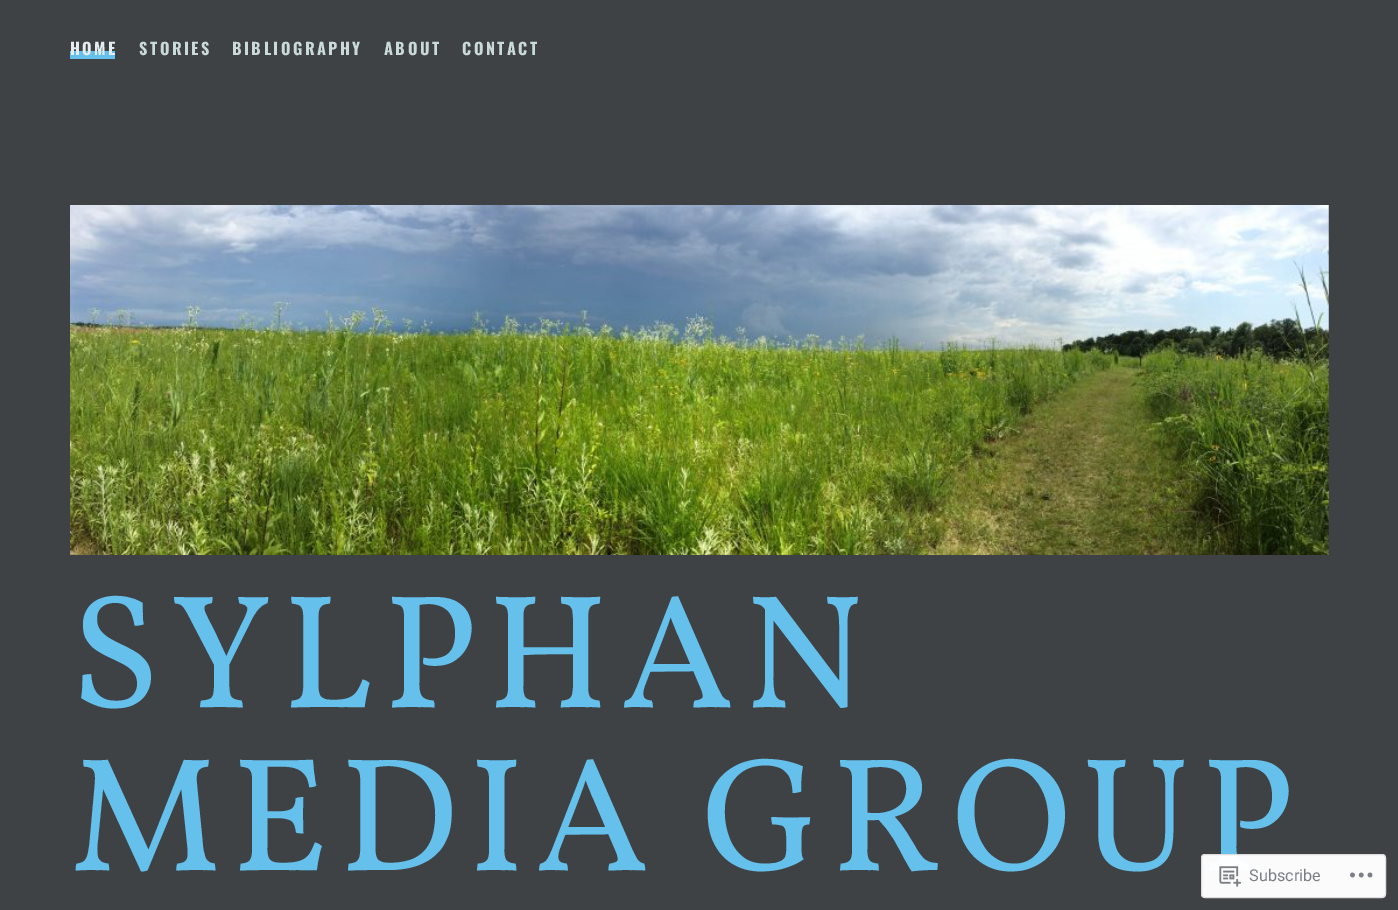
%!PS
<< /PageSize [1398 910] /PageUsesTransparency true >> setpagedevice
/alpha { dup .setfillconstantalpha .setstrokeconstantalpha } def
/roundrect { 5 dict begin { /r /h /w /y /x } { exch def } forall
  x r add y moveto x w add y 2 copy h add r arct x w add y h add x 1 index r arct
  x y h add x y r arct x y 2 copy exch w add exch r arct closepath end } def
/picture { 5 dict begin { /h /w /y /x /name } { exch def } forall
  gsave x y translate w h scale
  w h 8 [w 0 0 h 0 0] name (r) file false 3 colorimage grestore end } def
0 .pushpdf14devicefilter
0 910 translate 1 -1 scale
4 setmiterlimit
0.243 0.259 0.267 setrgbcolor
0 0 1398 910 rectfill
0.4 0.753 0.925 setrgbcolor
70 51 45 8 rectfill
/Oswald-Bold [16.25 0 0 -16.25 0 0] selectfont
0.902 0.929 0.941 setrgbcolor
70 55 moveto 2.5 0 (HOME) ashow
0.792 0.851 0.851 setrgbcolor
139 55 moveto 2.5 0 (STORIES) ashow
232 55 moveto 2.5 0 (BIBLIOGRAPHY) ashow
384 55 moveto 2.5 0 (ABOUT) ashow
462 55 moveto 2.5 0 (CONTACT) ashow
(img1.rgb) 70 205 1259 350 picture
/Vollkorn-Regular [162.5 0 0 -162.5 0 0] selectfont
0.4 0.753 0.925 setrgbcolor
70 707 moveto 10 0 (SYLPHAN) ashow
70 870 moveto 10 0 (MEDIA GROUP) ashow
0.98 alpha
1 setgray
1201 854 185 44 4 roundrect fill
0.863 0.863 0.871 setrgbcolor
1201.5 854.5 184 43 3.5 roundrect stroke
1 alpha
(img2.rgb) 1219 866 22 21 picture
/Roboto-Regular [16.25 0 0 -16.25 0 0] selectfont
0.482 0.498 0.518 setrgbcolor
1249 881 moveto (Subscribe) show
(img3.rgb) 1350 872 23 6 picture
.poppdf14devicefilter showpage
